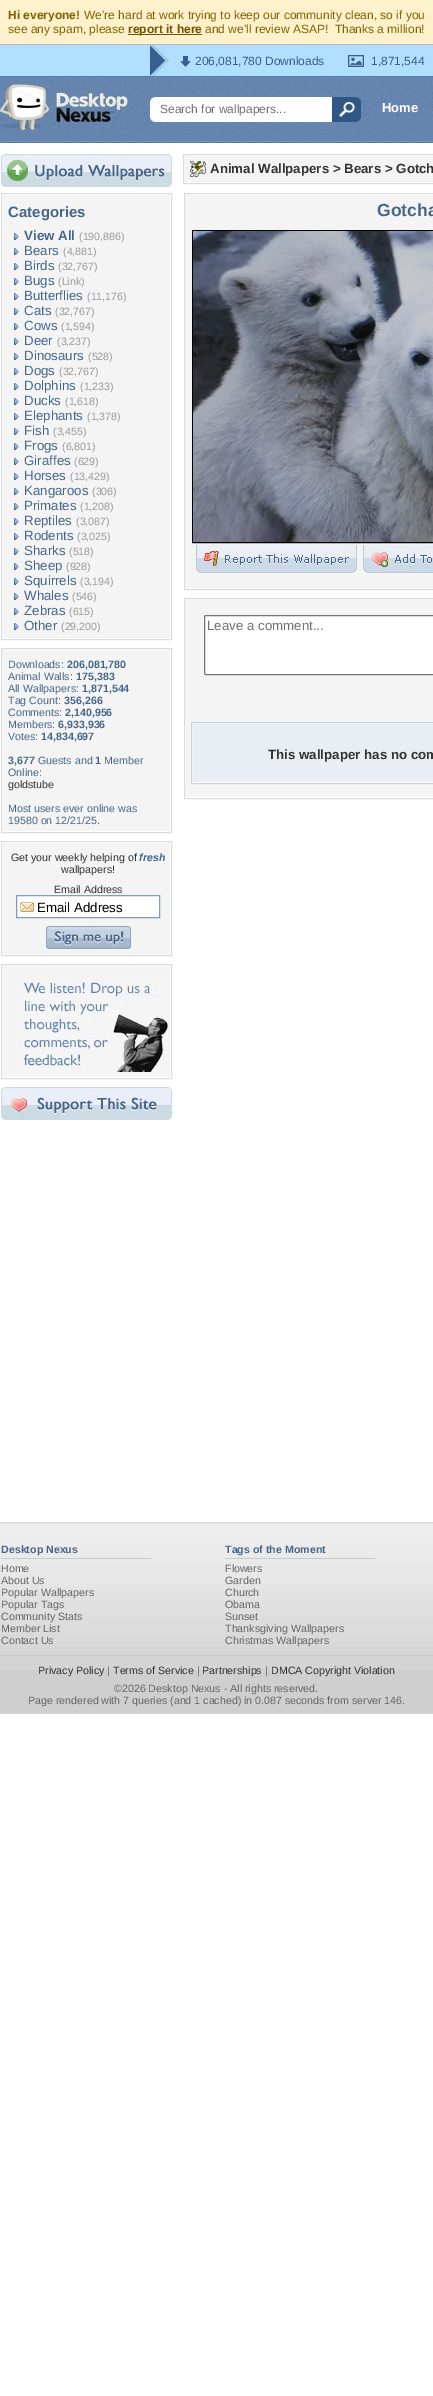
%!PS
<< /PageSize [433 2396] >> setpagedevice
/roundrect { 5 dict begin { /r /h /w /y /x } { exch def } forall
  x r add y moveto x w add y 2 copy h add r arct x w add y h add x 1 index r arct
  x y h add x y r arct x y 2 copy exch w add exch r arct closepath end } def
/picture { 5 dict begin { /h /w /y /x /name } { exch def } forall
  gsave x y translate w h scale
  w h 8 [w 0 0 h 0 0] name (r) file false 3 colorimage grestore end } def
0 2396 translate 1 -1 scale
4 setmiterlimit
1 setgray
0 0 433 2396 rectfill
1 0.945 0.796 setrgbcolor
0 0 433 44 rectfill
/LiberationSans-Bold [12 0 0 -12 0 0] selectfont
0.51 0.384 0 setrgbcolor
8 19 moveto (Hi everyone!) show
/LiberationSans-Regular [12 0 0 -12 0 0] selectfont
84 19 moveto (We're hard at work trying to keep our community clean, so if you) show
8 33 moveto (see any spam, please) show
0.439 0.333 0 setrgbcolor
128 34 74 1 rectfill
/LiberationSans-Bold [12 0 0 -12 0 0] selectfont
128 33 moveto (report it here) show
/LiberationSans-Regular [12 0 0 -12 0 0] selectfont
0.51 0.384 0 setrgbcolor
205 33 moveto (and we'll review ASAP!  Thanks a million!) show
0.694 0.875 1 setrgbcolor
0 45 433 31 rectfill
0.714 0.729 0.753 setrgbcolor
0 44 433 1 rectfill
(img1.rgb) 150 45 19 31 picture
(img2.rgb) 180 56 11 11 picture
0.216 0.369 0.565 setrgbcolor
195 65 moveto (206,081,780 Downloads) show
(img3.rgb) 348 55 16 12 picture
371 65 moveto (1,871,544) show
(img4.rgb) 0 76 433 67 picture
(img5.rgb) 0 84 128 46 picture
1 setgray
newpath 156 97 moveto 348 97 lineto 348 122 lineto 156 122 lineto 152.5 122 150 119.5 150 116 curveto 150 103 lineto 150 99.5 152.5 97 156 97 curveto closepath fill
0.439 setgray
160 113 moveto (Search for wallpapers...) show
0.188 0.337 0.525 setrgbcolor
newpath 332 97 moveto 355 97 lineto 358.5 97 361 99.5 361 103 curveto 361 116 lineto 361 119.5 358.5 122 355 122 curveto 332 122 lineto closepath fill
(img6.rgb) 339 102 16 15 picture
/LiberationSans-Bold [13 0 0 -13 0 0] selectfont
1 setgray
382 112 moveto (Home) show
(img7.rgb) 1 154 171 33 picture
0.863 setgray
1.5 193.5 170 446 rectstroke
0.957 setgray
3 195 167 443 rectfill
/LiberationSans-Bold [15 0 0 -15 0 0] selectfont
0.275 0.404 0.541 setrgbcolor
8 217 moveto (Categories) show
(img8.rgb) 14 233 5 7 picture
/LiberationSans-Bold [13.3 0 0 -13.3 0 0] selectfont
24 240 moveto (View All) show
/LiberationSans-Regular [10.65 0 0 -10.65 0 0] selectfont
0.6 setgray
79 240 moveto (\(190,886\)) show
(img8.rgb) 14 248 5 7 picture
/LiberationSans-Regular [13.3 0 0 -13.3 0 0] selectfont
0.275 0.404 0.541 setrgbcolor
24 255 moveto (Bears) show
/LiberationSans-Regular [10.65 0 0 -10.65 0 0] selectfont
0.6 setgray
63 255 moveto (\(4,881\)) show
(img8.rgb) 14 263 5 7 picture
/LiberationSans-Regular [13.3 0 0 -13.3 0 0] selectfont
0.275 0.404 0.541 setrgbcolor
24 270 moveto (Birds) show
/LiberationSans-Regular [10.65 0 0 -10.65 0 0] selectfont
0.6 setgray
58 270 moveto (\(32,767\)) show
(img8.rgb) 14 278 5 7 picture
/LiberationSans-Regular [13.3 0 0 -13.3 0 0] selectfont
0.275 0.404 0.541 setrgbcolor
24 285 moveto (Bugs) show
/LiberationSans-Regular [10.65 0 0 -10.65 0 0] selectfont
0.6 setgray
58 285 moveto (\(Link\)) show
(img8.rgb) 14 293 5 7 picture
/LiberationSans-Regular [13.3 0 0 -13.3 0 0] selectfont
0.275 0.404 0.541 setrgbcolor
24 300 moveto (Butterflies) show
/LiberationSans-Regular [10.65 0 0 -10.65 0 0] selectfont
0.6 setgray
87 300 moveto (\(11,176\)) show
(img8.rgb) 14 308 5 7 picture
/LiberationSans-Regular [13.3 0 0 -13.3 0 0] selectfont
0.275 0.404 0.541 setrgbcolor
24 315 moveto (Cats) show
/LiberationSans-Regular [10.65 0 0 -10.65 0 0] selectfont
0.6 setgray
55 315 moveto (\(32,767\)) show
(img8.rgb) 14 323 5 7 picture
/LiberationSans-Regular [13.3 0 0 -13.3 0 0] selectfont
0.275 0.404 0.541 setrgbcolor
24 330 moveto (Cows) show
/LiberationSans-Regular [10.65 0 0 -10.65 0 0] selectfont
0.6 setgray
61 330 moveto (\(1,594\)) show
(img8.rgb) 14 338 5 7 picture
/LiberationSans-Regular [13.3 0 0 -13.3 0 0] selectfont
0.275 0.404 0.541 setrgbcolor
24 345 moveto (Deer) show
/LiberationSans-Regular [10.65 0 0 -10.65 0 0] selectfont
0.6 setgray
57 345 moveto (\(3,237\)) show
(img8.rgb) 14 353 5 7 picture
/LiberationSans-Regular [13.3 0 0 -13.3 0 0] selectfont
0.275 0.404 0.541 setrgbcolor
24 360 moveto (Dinosaurs) show
/LiberationSans-Regular [10.65 0 0 -10.65 0 0] selectfont
0.6 setgray
88 360 moveto (\(528\)) show
(img8.rgb) 14 368 5 7 picture
/LiberationSans-Regular [13.3 0 0 -13.3 0 0] selectfont
0.275 0.404 0.541 setrgbcolor
24 375 moveto (Dogs) show
/LiberationSans-Regular [10.65 0 0 -10.65 0 0] selectfont
0.6 setgray
59 375 moveto (\(32,767\)) show
(img8.rgb) 14 383 5 7 picture
/LiberationSans-Regular [13.3 0 0 -13.3 0 0] selectfont
0.275 0.404 0.541 setrgbcolor
24 390 moveto (Dolphins) show
/LiberationSans-Regular [10.65 0 0 -10.65 0 0] selectfont
0.6 setgray
80 390 moveto (\(1,233\)) show
(img8.rgb) 14 398 5 7 picture
/LiberationSans-Regular [13.3 0 0 -13.3 0 0] selectfont
0.275 0.404 0.541 setrgbcolor
24 405 moveto (Ducks) show
/LiberationSans-Regular [10.65 0 0 -10.65 0 0] selectfont
0.6 setgray
65 405 moveto (\(1,618\)) show
(img8.rgb) 14 413 5 7 picture
/LiberationSans-Regular [13.3 0 0 -13.3 0 0] selectfont
0.275 0.404 0.541 setrgbcolor
24 420 moveto (Elephants) show
/LiberationSans-Regular [10.65 0 0 -10.65 0 0] selectfont
0.6 setgray
87 420 moveto (\(1,378\)) show
(img8.rgb) 14 428 5 7 picture
/LiberationSans-Regular [13.3 0 0 -13.3 0 0] selectfont
0.275 0.404 0.541 setrgbcolor
24 435 moveto (Fish) show
/LiberationSans-Regular [10.65 0 0 -10.65 0 0] selectfont
0.6 setgray
53 435 moveto (\(3,455\)) show
(img8.rgb) 14 443 5 7 picture
/LiberationSans-Regular [13.3 0 0 -13.3 0 0] selectfont
0.275 0.404 0.541 setrgbcolor
24 450 moveto (Frogs) show
/LiberationSans-Regular [10.65 0 0 -10.65 0 0] selectfont
0.6 setgray
62 450 moveto (\(6,801\)) show
(img8.rgb) 14 458 5 7 picture
/LiberationSans-Regular [13.3 0 0 -13.3 0 0] selectfont
0.275 0.404 0.541 setrgbcolor
24 465 moveto (Giraffes) show
/LiberationSans-Regular [10.65 0 0 -10.65 0 0] selectfont
0.6 setgray
74 465 moveto (\(629\)) show
(img8.rgb) 14 473 5 7 picture
/LiberationSans-Regular [13.3 0 0 -13.3 0 0] selectfont
0.275 0.404 0.541 setrgbcolor
24 480 moveto (Horses) show
/LiberationSans-Regular [10.65 0 0 -10.65 0 0] selectfont
0.6 setgray
70 480 moveto (\(13,429\)) show
(img8.rgb) 14 488 5 7 picture
/LiberationSans-Regular [13.3 0 0 -13.3 0 0] selectfont
0.275 0.404 0.541 setrgbcolor
24 495 moveto (Kangaroos) show
/LiberationSans-Regular [10.65 0 0 -10.65 0 0] selectfont
0.6 setgray
92 495 moveto (\(306\)) show
(img8.rgb) 14 503 5 7 picture
/LiberationSans-Regular [13.3 0 0 -13.3 0 0] selectfont
0.275 0.404 0.541 setrgbcolor
24 510 moveto (Primates) show
/LiberationSans-Regular [10.65 0 0 -10.65 0 0] selectfont
0.6 setgray
80 510 moveto (\(1,208\)) show
(img8.rgb) 14 518 5 7 picture
/LiberationSans-Regular [13.3 0 0 -13.3 0 0] selectfont
0.275 0.404 0.541 setrgbcolor
24 525 moveto (Reptiles) show
/LiberationSans-Regular [10.65 0 0 -10.65 0 0] selectfont
0.6 setgray
76 525 moveto (\(3,087\)) show
(img8.rgb) 14 533 5 7 picture
/LiberationSans-Regular [13.3 0 0 -13.3 0 0] selectfont
0.275 0.404 0.541 setrgbcolor
24 540 moveto (Rodents) show
/LiberationSans-Regular [10.65 0 0 -10.65 0 0] selectfont
0.6 setgray
77 540 moveto (\(3,025\)) show
(img8.rgb) 14 548 5 7 picture
/LiberationSans-Regular [13.3 0 0 -13.3 0 0] selectfont
0.275 0.404 0.541 setrgbcolor
24 555 moveto (Sharks) show
/LiberationSans-Regular [10.65 0 0 -10.65 0 0] selectfont
0.6 setgray
69 555 moveto (\(518\)) show
(img8.rgb) 14 563 5 7 picture
/LiberationSans-Regular [13.3 0 0 -13.3 0 0] selectfont
0.275 0.404 0.541 setrgbcolor
24 570 moveto (Sheep) show
/LiberationSans-Regular [10.65 0 0 -10.65 0 0] selectfont
0.6 setgray
66 570 moveto (\(928\)) show
(img8.rgb) 14 578 5 7 picture
/LiberationSans-Regular [13.3 0 0 -13.3 0 0] selectfont
0.275 0.404 0.541 setrgbcolor
24 585 moveto (Squirrels) show
/LiberationSans-Regular [10.65 0 0 -10.65 0 0] selectfont
0.6 setgray
80 585 moveto (\(3,194\)) show
(img8.rgb) 14 593 5 7 picture
/LiberationSans-Regular [13.3 0 0 -13.3 0 0] selectfont
0.275 0.404 0.541 setrgbcolor
24 600 moveto (Whales) show
/LiberationSans-Regular [10.65 0 0 -10.65 0 0] selectfont
0.6 setgray
72 600 moveto (\(546\)) show
(img8.rgb) 14 608 5 7 picture
/LiberationSans-Regular [13.3 0 0 -13.3 0 0] selectfont
0.275 0.404 0.541 setrgbcolor
24 615 moveto (Zebras) show
/LiberationSans-Regular [10.65 0 0 -10.65 0 0] selectfont
0.6 setgray
69 615 moveto (\(615\)) show
(img8.rgb) 14 623 5 7 picture
/LiberationSans-Regular [13.3 0 0 -13.3 0 0] selectfont
0.275 0.404 0.541 setrgbcolor
24 630 moveto (Other) show
/LiberationSans-Regular [10.65 0 0 -10.65 0 0] selectfont
0.6 setgray
61 630 moveto (\(29,200\)) show
0.863 setgray
1.5 648.5 170 184 rectstroke
0.957 setgray
3 650 167 181 rectfill
0.275 0.404 0.541 setrgbcolor
8 668 moveto (Downloads:) show
/LiberationSans-Bold [10.65 0 0 -10.65 0 0] selectfont
67 668 moveto (206,081,780) show
/LiberationSans-Regular [10.65 0 0 -10.65 0 0] selectfont
8 680 moveto (Animal Walls:) show
/LiberationSans-Bold [10.65 0 0 -10.65 0 0] selectfont
76 680 moveto (175,383) show
/LiberationSans-Regular [10.65 0 0 -10.65 0 0] selectfont
8 692 moveto (All Wallpapers:) show
/LiberationSans-Bold [10.65 0 0 -10.65 0 0] selectfont
82 692 moveto (1,871,544) show
/LiberationSans-Regular [10.65 0 0 -10.65 0 0] selectfont
8 704 moveto (Tag Count:) show
/LiberationSans-Bold [10.65 0 0 -10.65 0 0] selectfont
64 704 moveto (356,266) show
/LiberationSans-Regular [10.65 0 0 -10.65 0 0] selectfont
8 716 moveto (Comments:) show
/LiberationSans-Bold [10.65 0 0 -10.65 0 0] selectfont
65 716 moveto (2,140,956) show
/LiberationSans-Regular [10.65 0 0 -10.65 0 0] selectfont
8 728 moveto (Members:) show
/LiberationSans-Bold [10.65 0 0 -10.65 0 0] selectfont
58 728 moveto (6,933,936) show
/LiberationSans-Regular [10.65 0 0 -10.65 0 0] selectfont
8 740 moveto (Votes:) show
/LiberationSans-Bold [10.65 0 0 -10.65 0 0] selectfont
41 740 moveto (14,834,697) show
8 764 moveto (3,677) show
/LiberationSans-Regular [10.65 0 0 -10.65 0 0] selectfont
38 764 moveto (Guests and) show
/LiberationSans-Bold [10.65 0 0 -10.65 0 0] selectfont
95 764 moveto (1) show
/LiberationSans-Regular [10.65 0 0 -10.65 0 0] selectfont
104 764 moveto (Member) show
8 776 moveto (Online:) show
0.2 setgray
8 788 moveto (goldstube) show
0.275 0.404 0.541 setrgbcolor
8 812 moveto (Most users ever online was) show
8 824 moveto (19580 on 12/21/25.) show
0.863 setgray
1.5 841.5 170 114 rectstroke
0.957 setgray
3 843 167 111 rectfill
0.2 setgray
11 861 moveto (Get your weekly helping of) show
/LiberationSans-BoldItalic [10.65 0 0 -10.65 0 0] selectfont
0.275 0.404 0.541 setrgbcolor
139 861 moveto (fresh) show
/LiberationSans-Regular [10.65 0 0 -10.65 0 0] selectfont
0.2 setgray
61 873 moveto (wallpapers!) show
54 893 moveto (Email Address) show
1 setgray
17 896 142 21 rectfill
(img9.rgb) 17 902 17 10 picture
0.498 0.616 0.725 setrgbcolor
16.5 895.5 143 22 rectstroke
/LiberationSans-Regular [13.3 0 0 -13.3 0 0] selectfont
0 setgray
37 912 moveto (Email Address) show
(img10.rgb) 46 926 85 23 picture
0.863 setgray
1.5 964.5 170 114 rectstroke
0.957 setgray
3 966 167 111 rectfill
(img11.rgb) 21 981 147 91 picture
(img12.rgb) 1 1087 171 33 picture
0.863 setgray
183.5 154.5 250 29 rectstroke
0.957 setgray
185 156 248 26 rectfill
(img13.rgb) 190 161 16 16 picture
/LiberationSans-Bold [13.3 0 0 -13.3 0 0] selectfont
0.2 setgray
210 173 moveto (Animal Wallpapers > Bears > Gotch) show
0.863 setgray
184.5 193.5 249 396 rectstroke
0.957 setgray
186 195 247 393 rectfill
/LiberationSans-Bold [17.5 0 0 -17.5 0 0] selectfont
0.275 0.404 0.541 setrgbcolor
377 216 moveto (Gotcha) show
0 setgray
192.5 230.5 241 312 rectstroke
(img14.rgb) 193 231 240 311 picture
(img15.rgb) 196 545 161 28 picture
(img16.rgb) 363 545 70 28 picture
0.863 setgray
184.5 598.5 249 200 rectstroke
0.957 setgray
186 600 247 197 rectfill
1 setgray
204.5 615.5 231 59 1.5 roundrect gsave fill grestore
0.463 setgray
stroke
/LiberationSans-Regular [13.3 0 0 -13.3 0 0] selectfont
0.439 setgray
207 630 moveto (Leave a comment...) show
1 setgray
newpath 191.5 722.5 moveto 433.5 722.5 lineto 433.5 783.5 lineto 191.5 783.5 lineto closepath gsave fill grestore
0.773 0.824 0.886 setrgbcolor
stroke
0.914 0.933 0.957 setrgbcolor
193 724 240 58 rectfill
/LiberationSans-Bold [13.3 0 0 -13.3 0 0] selectfont
0.2 setgray
268 759 moveto (This wallpaper has no com) show
0.812 setgray
0 1670 433 44 rectfill
(img17.rgb) 0 1522 433 148 picture
/LiberationSans-Bold [10.65 0 0 -10.65 0 0] selectfont
0.275 0.404 0.541 setrgbcolor
1 1553 moveto (Desktop Nexus) show
0.788 setgray
1 1558 150 1 rectfill
/LiberationSans-Regular [10.65 0 0 -10.65 0 0] selectfont
0.4 setgray
1 1572 moveto (Home) show
1 1584 moveto (About Us) show
1 1596 moveto (Popular Wallpapers) show
1 1608 moveto (Popular Tags) show
1 1620 moveto (Community Stats) show
1 1632 moveto (Member List) show
1 1644 moveto (Contact Us) show
/LiberationSans-Bold [10.65 0 0 -10.65 0 0] selectfont
0.275 0.404 0.541 setrgbcolor
225 1553 moveto (Tags of the Moment) show
0.788 setgray
225 1558 150 1 rectfill
/LiberationSans-Regular [10.65 0 0 -10.65 0 0] selectfont
0.4 setgray
225 1572 moveto (Flowers) show
225 1584 moveto (Garden) show
225 1596 moveto (Church) show
225 1608 moveto (Obama) show
225 1620 moveto (Sunset) show
225 1632 moveto (Thanksgiving Wallpapers) show
225 1644 moveto (Christmas Wallpapers) show
0.788 setgray
0 1655 433 1 rectfill
0.2 setgray
38 1674 moveto (Privacy Policy) show
0.4 setgray
107 1674 moveto (|) show
0.2 setgray
113 1674 moveto (Terms of Service) show
0.4 setgray
197 1674 moveto (|) show
0.2 setgray
202 1674 moveto (Partnerships) show
0.4 setgray
265 1674 moveto (|) show
0.2 setgray
271 1674 moveto (DMCA Copyright Violation) show
0.4 setgray
114 1692 moveto (©2026 Desktop Nexus - All rights reserved.) show
28 1704 moveto (Page rendered with 7 queries \(and 1 cached\) in 0.087 seconds from server 146.) show
showpage
